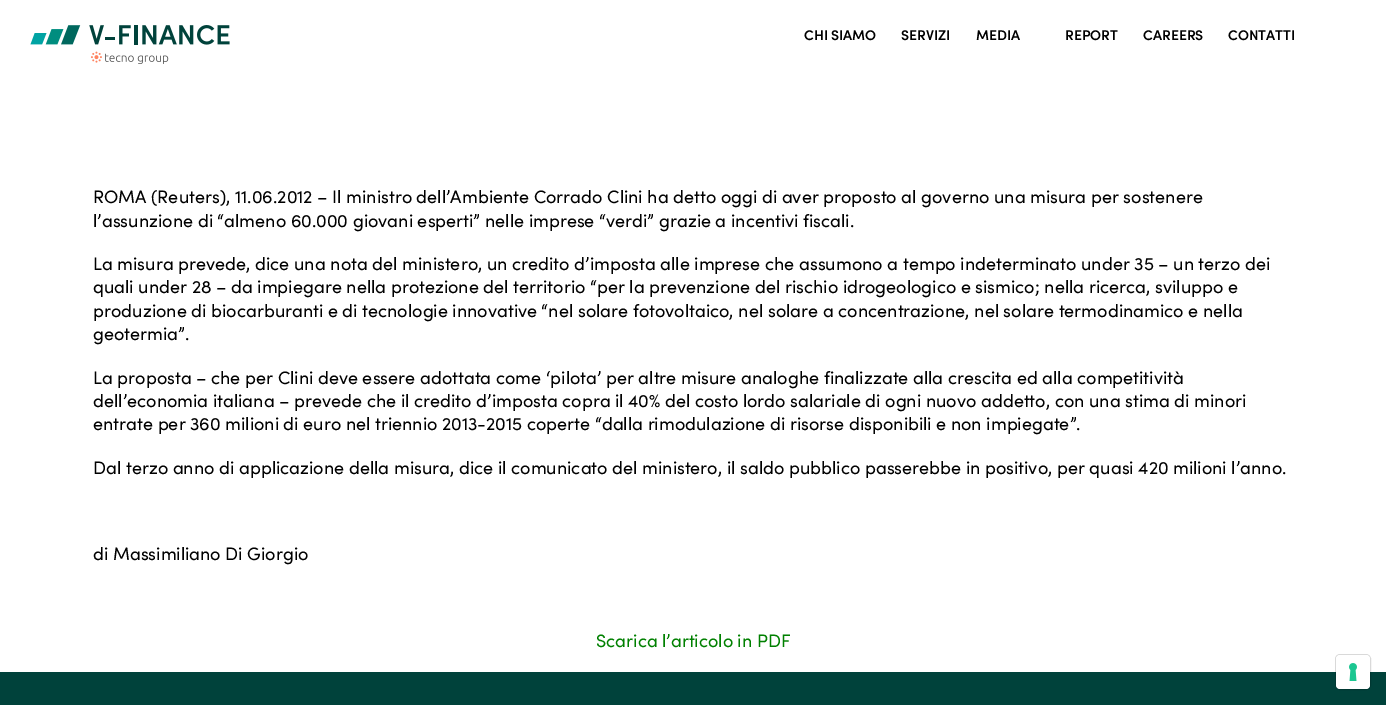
%!PS
<< /PageSize [1386 705] /PageUsesTransparency true >> setpagedevice
/alpha { dup .setfillconstantalpha .setstrokeconstantalpha } def
/roundrect { 5 dict begin { /r /h /w /y /x } { exch def } forall
  x r add y moveto x w add y 2 copy h add r arct x w add y h add x 1 index r arct
  x y h add x y r arct x y 2 copy exch w add exch r arct closepath end } def
/picture { 5 dict begin { /h /w /y /x /name } { exch def } forall
  gsave x y translate w h scale
  w h 8 [w 0 0 h 0 0] name (r) file false 3 colorimage grestore end } def
0 .pushpdf14devicefilter
0 705 translate 1 -1 scale
4 setmiterlimit
1 setgray
0 0 1386 705 rectfill
(img1.rgb) 30 25 200 39 picture
/Sofia-SemiBold [14 0 0 -14 0 0] selectfont
0 setgray
804 40 moveto (CHI SIAMO) show
901 40 moveto (SERVIZI) show
976 40 moveto (MEDIA) show
1065 40 moveto (REPORT) show
1143 40 moveto (CAREERS) show
1228 40 moveto (CONTATTI) show
/Sofia-Regular [18 0 0 -18 0 0] selectfont
93 203 moveto (ROMA \(Reuters\), 11.06.2012 – Il ministro dell’Ambiente Corrado Clini ha detto oggi di aver proposto al governo una misura per sostenere) show
93 227 moveto (l’assunzione di “almeno 60.000 giovani esperti” nelle imprese “verdi” grazie a incentivi fiscali.) show
93 270 moveto (La misura prevede, dice una nota del ministero, un credito d’imposta alle imprese che assumono a tempo indeterminato under 35 – un terzo dei) show
93 293 moveto (quali under 28 – da impiegare nella protezione del territorio “per la prevenzione del rischio idrogeologico e sismico; nella ricerca, sviluppo e) show
93 317 moveto (produzione di biocarburanti e di tecnologie innovative “nel solare fotovoltaico, nel solare a concentrazione, nel solare termodinamico e nella) show
93 340 moveto (geotermia”.) show
93 384 moveto (La proposta – che per Clini deve essere adottata come ‘pilota’ per altre misure analoghe finalizzate alla crescita ed alla competitività) show
93 407 moveto (dell’economia italiana – prevede che il credito d’imposta copra il 40% del costo lordo salariale di ogni nuovo addetto, con una stima di minori) show
93 430 moveto (entrate per 360 milioni di euro nel triennio 2013-2015 coperte “dalla rimodulazione di risorse disponibili e non impiegate”.) show
93 474 moveto (Dal terzo anno di applicazione della misura, dice il comunicato del ministero, il saldo pubblico passerebbe in positivo, per quasi 420 milioni l’anno.) show
93 560 moveto (di Massimiliano Di Giorgio) show
0 0.502 0 setrgbcolor
596 647 moveto (Scarica l’articolo in PDF) show
0 0.259 0.231 setrgbcolor
0 672 1386 33 rectfill
0.15 alpha
0 setgray
1335.5 654.5 35 35 4.5 roundrect stroke
1 alpha
1 setgray
1336 655 34 34 4 roundrect fill
(img2.rgb) 1349 663 8 18 picture
.poppdf14devicefilter showpage
